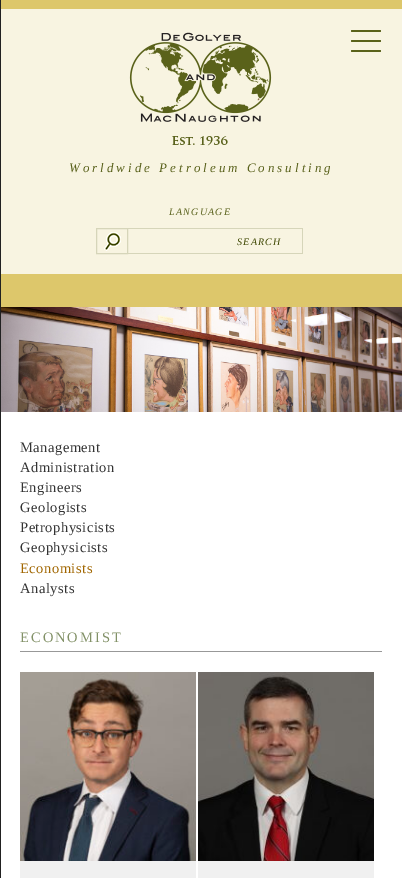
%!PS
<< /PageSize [402 878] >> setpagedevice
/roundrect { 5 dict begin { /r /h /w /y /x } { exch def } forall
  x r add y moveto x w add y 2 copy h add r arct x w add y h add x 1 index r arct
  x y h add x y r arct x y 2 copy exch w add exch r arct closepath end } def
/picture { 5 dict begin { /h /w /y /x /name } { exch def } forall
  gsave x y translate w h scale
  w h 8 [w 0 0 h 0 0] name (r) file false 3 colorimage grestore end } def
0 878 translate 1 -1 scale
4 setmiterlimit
1 setgray
0 0 402 878 rectfill
0.129 setgray
0 0 1 878 rectfill
0.973 0.957 0.882 setrgbcolor
1 9 401 265 rectfill
0.353 0.384 0.102 setrgbcolor
351 40 30 2 1 roundrect fill
351 30 30 2 1 roundrect fill
351 50 30 2 1 roundrect fill
0.867 0.78 0.42 setrgbcolor
1 0 401 9 rectfill
(img1.rgb) 129 32 143 114 picture
/LiberationSerif-Italic [13 0 0 -13 0 0] selectfont
0.353 0.384 0.11 setrgbcolor
69 172 moveto 3 0 (Worldwide Petroleum Consulting) ashow
/LiberationSerif-Italic [10 0 0 -10 0 0] selectfont
169 215 moveto 1.25 0 (LANGUAGE) ashow
0.839 0.835 0.725 setrgbcolor
96.5 228.5 31 25 rectstroke
(img2.rgb) 104 232 17 19 picture
128 228 175 1 rectfill
302 228 1 26 rectfill
128 253 175 1 rectfill
0.239 0.275 0 setrgbcolor
237 245 moveto 1.25 0 (SEARCH) ashow
0.867 0.78 0.42 setrgbcolor
1 274 401 33 rectfill
(img3.rgb) 1 307 401 105 picture
/LiberationSerif-Regular [14.5 0 0 -14.5 0 0] selectfont
0.2 setgray
20 452 moveto 0.5 0 (Management) ashow
20 472 moveto 0.5 0 (Administration) ashow
20 492 moveto 0.5 0 (Engineers) ashow
20 512 moveto 0.5 0 (Geologists) ashow
20 532 moveto 0.5 0 (Petrophysicists) ashow
20 552 moveto 0.5 0 (Geophysicists) ashow
0.631 0.4 0 setrgbcolor
20 573 moveto 0.5 0 (Economists) ashow
0.2 setgray
20 593 moveto 0.5 0 (Analysts) ashow
0.51 0.569 0.404 setrgbcolor
20 642 moveto 2 0 (ECONOMIST) ashow
0.596 setgray
20 651 362 1 rectfill
(img4.rgb) 20 672 176 189 picture
0.941 setgray
20 861 176 17 rectfill
(img5.rgb) 198 672 176 189 picture
198 861 176 17 rectfill
showpage
